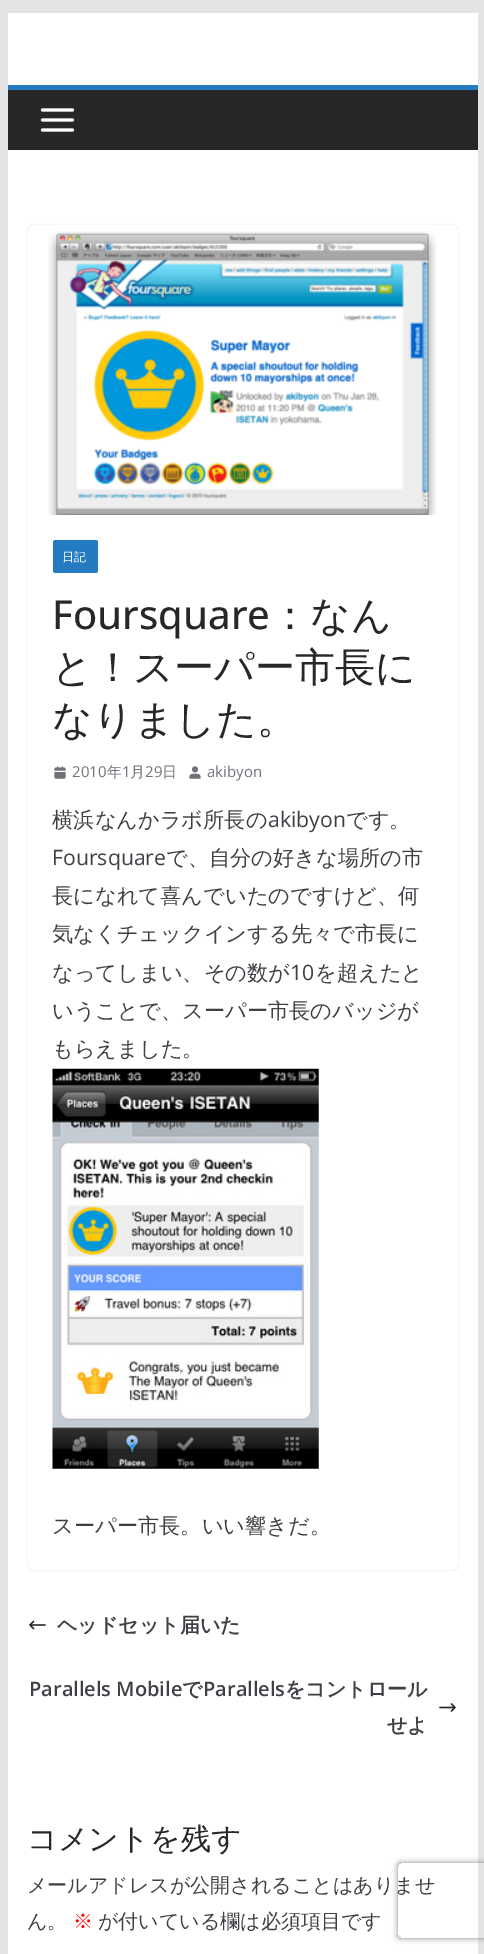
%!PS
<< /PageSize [484 1954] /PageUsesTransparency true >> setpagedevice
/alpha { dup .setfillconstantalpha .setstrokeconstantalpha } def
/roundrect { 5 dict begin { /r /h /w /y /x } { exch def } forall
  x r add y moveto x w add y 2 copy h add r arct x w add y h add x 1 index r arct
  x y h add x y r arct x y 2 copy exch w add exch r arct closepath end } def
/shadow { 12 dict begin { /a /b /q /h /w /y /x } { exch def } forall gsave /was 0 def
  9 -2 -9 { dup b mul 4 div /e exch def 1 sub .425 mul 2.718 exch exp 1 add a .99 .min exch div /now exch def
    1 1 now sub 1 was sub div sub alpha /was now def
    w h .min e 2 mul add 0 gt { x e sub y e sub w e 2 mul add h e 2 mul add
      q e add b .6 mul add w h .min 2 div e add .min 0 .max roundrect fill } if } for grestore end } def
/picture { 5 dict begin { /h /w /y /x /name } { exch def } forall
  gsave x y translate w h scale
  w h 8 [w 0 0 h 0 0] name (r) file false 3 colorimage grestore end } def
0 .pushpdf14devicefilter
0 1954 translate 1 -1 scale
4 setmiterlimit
0.894 0.894 0.906 setrgbcolor
0 0 484 1954 rectfill
1 setgray
8 13 470 72 rectfill
0.153 0.153 0.165 setrgbcolor
8 90 470 60 rectfill
0.145 0.482 0.757 setrgbcolor
8 85 470 5 rectfill
(img1.rgb) 40 108 35 24 picture
1 setgray
8 150 470 1804 rectfill
gsave
newpath 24 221 moveto 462 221 lineto 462 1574 lineto 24 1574 lineto closepath 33 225 moveto 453 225 lineto 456 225 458 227 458 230 curveto 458 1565 lineto 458 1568 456 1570 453 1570 curveto 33 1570 lineto 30 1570 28 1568 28 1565 curveto 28 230 lineto 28 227 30 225 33 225 curveto closepath eoclip newpath
0.894 0.894 0.906 setrgbcolor
28 225 430 1345 5 1 1 shadow
grestore
(img2.rgb) 48 231 389 284 picture
0.145 0.482 0.757 setrgbcolor
53 540 45 33 2.5 roundrect fill
/WenQuanYiZenHei-Medium [12 0 0 -12 0 0] selectfont
1 setgray
62 561 moveto (日記) show
/OpenSans-Medium [40 0 0 -40 0 0] selectfont
0.153 0.153 0.165 setrgbcolor
52 629 moveto (Foursquare) show
/WenQuanYiZenHei-Medium [40 0 0 -40 0 0] selectfont
270 629 moveto (：なん) show
52 681 moveto (と！スーパー市長に) show
52 733 moveto (なりました。) show
(img3.rgb) 54 766 12 13 picture
/OpenSans-Regular [15 0 0 -15 0 0] selectfont
0.443 0.443 0.478 setrgbcolor
72 777 moveto (2010) show
/WenQuanYiZenHei-Medium [15 0 0 -15 0 0] selectfont
107 777 moveto (年) show
/OpenSans-Regular [15 0 0 -15 0 0] selectfont
122 777 moveto (1) show
/WenQuanYiZenHei-Medium [15 0 0 -15 0 0] selectfont
130 777 moveto (月) show
/OpenSans-Regular [15 0 0 -15 0 0] selectfont
145 777 moveto (29) show
/WenQuanYiZenHei-Medium [15 0 0 -15 0 0] selectfont
162 777 moveto (日) show
(img4.rgb) 189 766 12 13 picture
/OpenSans-Regular [15 0 0 -15 0 0] selectfont
207 777 moveto (akibyon) show
/WenQuanYiZenHei-Medium [21.25 0 0 -21.25 0 0] selectfont
0.247 0.247 0.275 setrgbcolor
52 827 moveto (横浜なんかラボ所長の) show
/OpenSans-Regular [21.25 0 0 -21.25 0 0] selectfont
268 827 moveto (akibyon) show
/WenQuanYiZenHei-Medium [21.25 0 0 -21.25 0 0] selectfont
346 827 moveto (です。) show
/OpenSans-Regular [21.25 0 0 -21.25 0 0] selectfont
52 865 moveto (Foursquare) show
/WenQuanYiZenHei-Medium [21.25 0 0 -21.25 0 0] selectfont
166 865 moveto (で、自分の好きな場所の市) show
52 903 moveto (長になれて喜んでいたのですけど、何) show
52 941 moveto (気なくチェックインする先々で市長に) show
52 980 moveto (なってしまい、その数が) show
/OpenSans-Regular [21.25 0 0 -21.25 0 0] selectfont
290 980 moveto (10) show
/WenQuanYiZenHei-Medium [21.25 0 0 -21.25 0 0] selectfont
315 980 moveto (を超えたと) show
52 1018 moveto (いうことで、スーパー市長のバッジが) show
52 1056 moveto (もらえました。) show
(img5.rgb) 52 1068 267 401 picture
52 1533 moveto (スーパー市長。いい響きだ。) show
(img6.rgb) 29 1620 17 10 picture
/WenQuanYiZenHei-Bold [20 0 0 -20 0 0] selectfont
57 1632 moveto (ヘッドセット届いた) show
/OpenSans-SemiBold [20 0 0 -20 0 0] selectfont
29 1696 moveto (Parallels Mobile) show
/WenQuanYiZenHei-Bold [20 0 0 -20 0 0] selectfont
182 1696 moveto (で) show
/OpenSans-SemiBold [20 0 0 -20 0 0] selectfont
203 1696 moveto (Parallels) show
/WenQuanYiZenHei-Bold [20 0 0 -20 0 0] selectfont
285 1696 moveto (をコントロール) show
(img7.rgb) 439 1703 17 9 picture
387 1732 moveto (せよ) show
/WenQuanYiZenHei-Medium [30 0 0 -30 0 0] selectfont
0.153 0.153 0.165 setrgbcolor
27 1849 moveto (コメントを残す) show
/WenQuanYiZenHei-Medium [20 0 0 -20 0 0] selectfont
0.247 0.247 0.275 setrgbcolor
27 1892 moveto (メールアドレスが公開されることはありませ) show
27 1928 moveto (ん。) show
1 0 0 setrgbcolor
73 1928 moveto (※) show
0.247 0.247 0.275 setrgbcolor
98 1928 moveto (が付いている欄は必須項目です) show
gsave
newpath 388 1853 moveto 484 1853 lineto 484 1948 lineto 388 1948 lineto closepath 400.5 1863 moveto 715.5 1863 lineto 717 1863 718 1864 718 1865.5 curveto 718 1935.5 lineto 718 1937 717 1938 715.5 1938 curveto 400.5 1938 lineto 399 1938 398 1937 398 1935.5 curveto 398 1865.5 lineto 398 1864 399 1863 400.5 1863 curveto closepath eoclip newpath
0.502 setgray
398 1863 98 75 2.5 3 1 shadow
grestore
.poppdf14devicefilter showpage
